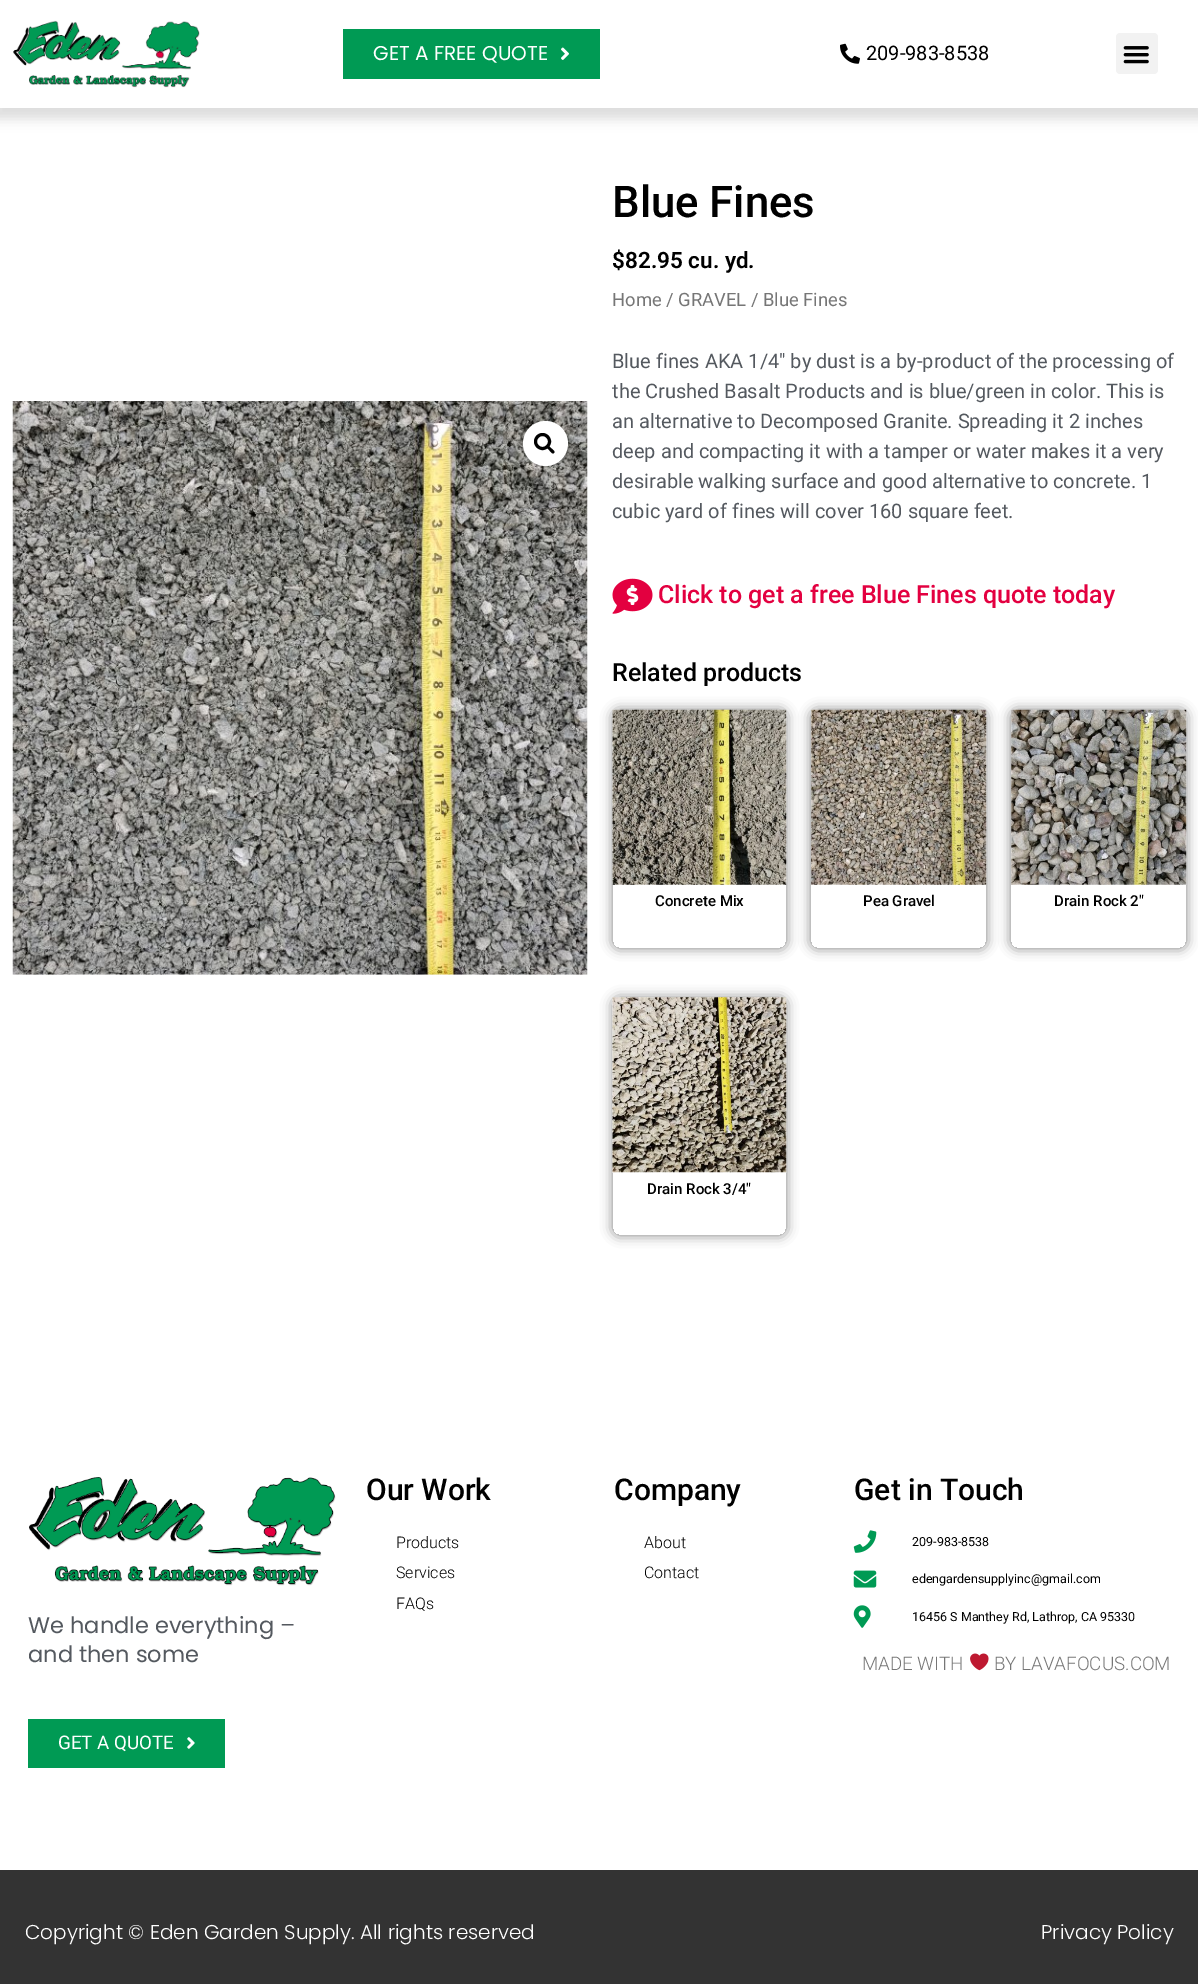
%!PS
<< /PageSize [1198 1984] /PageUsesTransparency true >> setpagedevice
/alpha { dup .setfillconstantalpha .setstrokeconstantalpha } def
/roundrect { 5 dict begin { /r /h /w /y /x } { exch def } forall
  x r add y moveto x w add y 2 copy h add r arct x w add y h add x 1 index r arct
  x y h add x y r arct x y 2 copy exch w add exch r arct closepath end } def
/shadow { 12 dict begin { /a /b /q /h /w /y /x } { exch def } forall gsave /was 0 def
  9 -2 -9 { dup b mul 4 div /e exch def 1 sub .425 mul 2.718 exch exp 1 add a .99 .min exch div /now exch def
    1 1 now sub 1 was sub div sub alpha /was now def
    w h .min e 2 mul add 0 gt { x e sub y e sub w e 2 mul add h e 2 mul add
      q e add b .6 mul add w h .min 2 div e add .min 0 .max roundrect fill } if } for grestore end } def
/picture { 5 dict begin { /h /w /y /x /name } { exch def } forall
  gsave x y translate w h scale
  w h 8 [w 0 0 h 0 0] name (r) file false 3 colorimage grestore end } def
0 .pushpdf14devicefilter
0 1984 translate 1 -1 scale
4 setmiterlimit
1 setgray
0 0 1198 1984 rectfill
0 setgray
-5 1 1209 118 0 6 0.13 shadow
1 setgray
0 0 1198 108 rectfill
(img1.rgb) 13 20 187 68 picture
0 0.604 0.329 setrgbcolor
343 29 257 50 rectfill
/Poppins-Regular [20 0 0 -20 0 0] selectfont
1 setgray
373 60 moveto (GET A FREE QUOTE) show
(img2.rgb) 561 47 8 13 picture
(img3.rgb) 840 43 20 21 picture
/Roboto-Regular [20 0 0 -20 0 0] selectfont
0 setgray
866 60 moveto (209-983-8538) show
0.949 setgray
1116 33 42 41 4 roundrect fill
(img4.rgb) 1123 46 26 18 picture
(img5.rgb) 12 401 576 574 picture
1 setgray
newpath 545.5 443.5 22.5 0 360 arc closepath fill
0 setgray
3 setlinewidth
newpath 542.5 441.5 7 0 360 arc closepath stroke
newpath 547 446 moveto 548.5 444.5 550.5 448 551.5 448.5 curveto 552.5 449.5 555.5 451.5 554 453 curveto 552.5 454.5 550.5 451.5 549.5 450.5 curveto 549 449.5 545.5 447.5 547 446 curveto closepath fill
/Roboto-Medium [43.75 0 0 -43.75 0 0] selectfont
612 217 moveto (Blue Fines) show
/Roboto-SemiBold [22.5 0 0 -22.5 0 0] selectfont
612 268 moveto ($82.95 cu. yd.) show
/Roboto-Regular [18.4 0 0 -18.4 0 0] selectfont
0.463 setgray
612 306 moveto (Home / GRAVEL / Blue Fines) show
/Roboto-Regular [20 0 0 -20 0 0] selectfont
0.329 0.349 0.373 setrgbcolor
612 368 moveto (Blue fines AKA 1/4″ by dust is a by-product of the processing of) show
612 398 moveto (the Crushed Basalt Products and is blue/green in color. This is) show
612 428 moveto (an alternative to Decomposed Granite. Spreading it 2 inches) show
612 458 moveto (deep and compacting it with a tamper or water makes it a very) show
612 488 moveto (desirable walking surface and good alternative to concrete. 1) show
612 518 moveto (cubic yard of fines will cover 160 square feet.) show
(img6.rgb) 612 578 41 36 picture
/Roboto-Medium [25 0 0 -25 0 0] selectfont
0.89 0 0.251 setrgbcolor
658 603 moveto (Click to get a free Blue Fines quote today) show
0 setgray
612 681 moveto (Related products) show
gsave
newpath 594 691 moveto 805 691 lineto 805 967 lineto 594 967 lineto closepath 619 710 moveto 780 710 lineto 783.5 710 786 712.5 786 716 curveto 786 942 lineto 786 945.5 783.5 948 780 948 curveto 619 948 lineto 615.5 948 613 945.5 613 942 curveto 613 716 lineto 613 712.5 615.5 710 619 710 curveto closepath eoclip newpath
613 710 173 238 6 6 0.5 shadow
grestore
(img7.rgb) 612 709 175 176 picture
/Roboto-Medium [15 0 0 -15 0 0] selectfont
655 906 moveto (Concrete Mix) show
gsave
newpath 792 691 moveto 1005 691 lineto 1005 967 lineto 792 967 lineto closepath 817 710 moveto 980 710 lineto 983.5 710 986 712.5 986 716 curveto 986 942 lineto 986 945.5 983.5 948 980 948 curveto 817 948 lineto 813.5 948 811 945.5 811 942 curveto 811 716 lineto 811 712.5 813.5 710 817 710 curveto closepath eoclip newpath
811 710 175 238 6 6 0.5 shadow
grestore
(img8.rgb) 811 709 176 176 picture
863 906 moveto (Pea Gravel) show
gsave
newpath 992 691 moveto 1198 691 lineto 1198 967 lineto 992 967 lineto closepath 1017 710 moveto 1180 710 lineto 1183.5 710 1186 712.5 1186 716 curveto 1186 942 lineto 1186 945.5 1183.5 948 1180 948 curveto 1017 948 lineto 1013.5 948 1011 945.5 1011 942 curveto 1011 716 lineto 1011 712.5 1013.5 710 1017 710 curveto closepath eoclip newpath
1011 710 175 238 6 6 0.5 shadow
grestore
(img9.rgb) 1011 709 176 176 picture
1054 906 moveto (Drain Rock 2″) show
gsave
newpath 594 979 moveto 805 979 lineto 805 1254 lineto 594 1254 lineto closepath 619 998 moveto 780 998 lineto 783.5 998 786 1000.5 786 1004 curveto 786 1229 lineto 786 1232.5 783.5 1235 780 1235 curveto 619 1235 lineto 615.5 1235 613 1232.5 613 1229 curveto 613 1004 lineto 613 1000.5 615.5 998 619 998 curveto closepath eoclip newpath
613 998 173 237 6 6 0.5 shadow
grestore
(img10.rgb) 612 997 175 176 picture
647 1194 moveto (Drain Rock 3/4″) show
/Roboto-Medium [30 0 0 -30 0 0] selectfont
366 1500 moveto (Our Work) show
/Roboto-Light [16 0 0 -16 0 0] selectfont
396 1548 moveto (Products) show
396 1578 moveto (Services) show
396 1609 moveto (FAQs) show
/Roboto-Medium [30 0 0 -30 0 0] selectfont
614 1500 moveto (Company) show
/Roboto-Light [16 0 0 -16 0 0] selectfont
644 1548 moveto (About) show
644 1578 moveto (Contact) show
/Roboto-Medium [30 0 0 -30 0 0] selectfont
854 1500 moveto (Get in Touch) show
(img11.rgb) 853 1530 24 23 picture
/Roboto-Regular [12.5 0 0 -12.5 0 0] selectfont
912 1546 moveto (209-983-8538) show
(img12.rgb) 853 1570 24 18 picture
912 1583 moveto (edengardensupplyinc@gmail.com) show
(img13.rgb) 853 1605 18 23 picture
912 1621 moveto (16456 S Manthey Rd, Lathrop, CA 95330) show
/Roboto-Light [18.75 0 0 -18.75 0 0] selectfont
0.463 setgray
862 1670 moveto (MADE WITH) show
(img14.rgb) 970 1653 19 18 picture
994 1670 moveto (BY LAVAFOCUS.COM) show
(img15.rgb) 29 1477 307 109 picture
/Poppins-Regular [22.5 0 0 -22.5 0 0] selectfont
0.329 0.349 0.373 setrgbcolor
28 1633 moveto (We handle everything –) show
28 1662 moveto (and then some) show
0 0.604 0.329 setrgbcolor
28 1719 197 49 rectfill
/Roboto-Regular [18.75 0 0 -18.75 0 0] selectfont
1 setgray
58 1749 moveto (GET A QUOTE) show
(img16.rgb) 187 1737 8 12 picture
0.2 setgray
0 1870 1198 114 rectfill
/Poppins-Light [20 0 0 -20 0 0] selectfont
1 setgray
25 1939 moveto (Copyright © Eden Garden Supply. All rights reserved) show
1041 1939 moveto (Privacy Policy) show
.poppdf14devicefilter showpage
